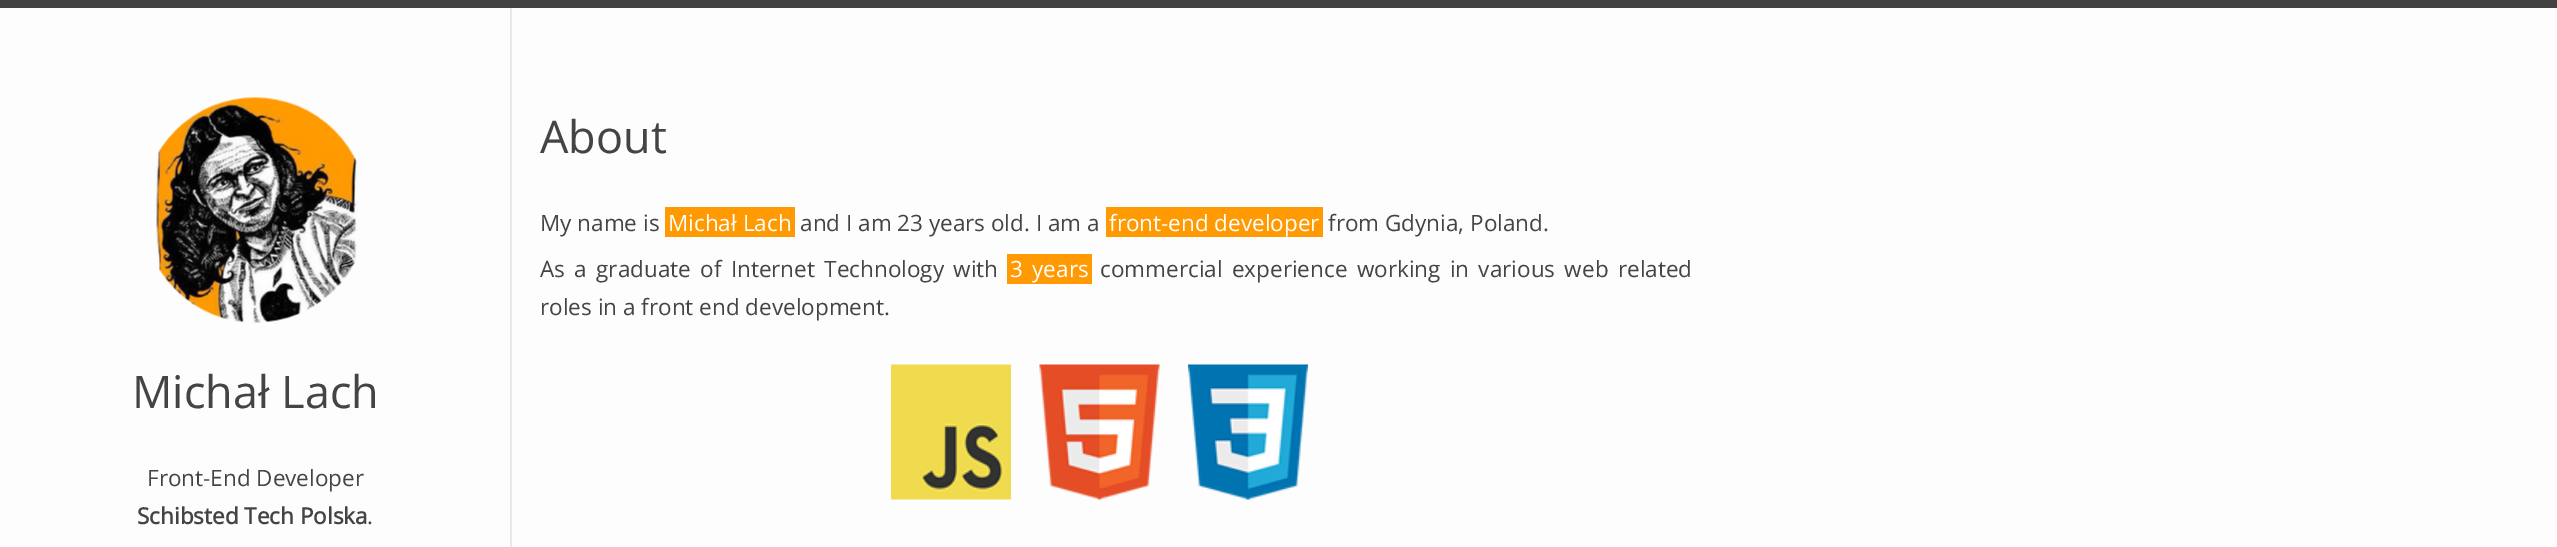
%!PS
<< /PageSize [2557 547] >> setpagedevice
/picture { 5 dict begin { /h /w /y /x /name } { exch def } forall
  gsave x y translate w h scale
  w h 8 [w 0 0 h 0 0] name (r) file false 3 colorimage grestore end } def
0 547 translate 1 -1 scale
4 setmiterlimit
0.992 setgray
0 0 2557 547 rectfill
0.259 setgray
0 0 2557 8 rectfill
/OpenSans-Regular [45 0 0 -45 0 0] selectfont
0.267 setgray
540 153 moveto (About) show
/OpenSans-Regular [22.5 0 0 -22.5 0 0] selectfont
540 231 moveto (My name is) show
1 0.604 0.008 setrgbcolor
665 207 130 30 rectfill
1 setgray
668 231 moveto (Michał Lach) show
0.267 setgray
800 231 moveto (and I am 23 years old. I am a) show
1 0.604 0.008 setrgbcolor
1106 207 217 30 rectfill
1 setgray
1109 231 moveto (front-end developer) show
0.267 setgray
1328 231 moveto (from Gdynia, Poland.) show
540 277 moveto 3.5 0 32 (As a graduate of Internet Technology with) widthshow
1 0.604 0.008 setrgbcolor
1007 254 85 30 rectfill
1 setgray
1010 277 moveto 3.5 0 32 (3 years) widthshow
0.267 setgray
1100 277 moveto 3.5 0 32 (commercial experience working in various web related) widthshow
540 315 moveto (roles in a front end development.) show
(img1.rgb) 891 364 120 136 picture
(img2.rgb) 1039 364 121 136 picture
(img3.rgb) 1188 364 120 136 picture
0.91 setgray
510 8 2 539 rectfill
(img4.rgb) 155 97 203 226 picture
/OpenSans-Regular [45 0 0 -45 0 0] selectfont
0.267 setgray
132 408 moveto (Michał Lach) show
/OpenSans-Regular [22.5 0 0 -22.5 0 0] selectfont
147 486 moveto (Front-End Developer) show
/OpenSans-Bold [22.5 0 0 -22.5 0 0] selectfont
137 524 moveto (Schibsted Tech Polska) show
/OpenSans-Regular [22.5 0 0 -22.5 0 0] selectfont
367 524 moveto (.) show
showpage
